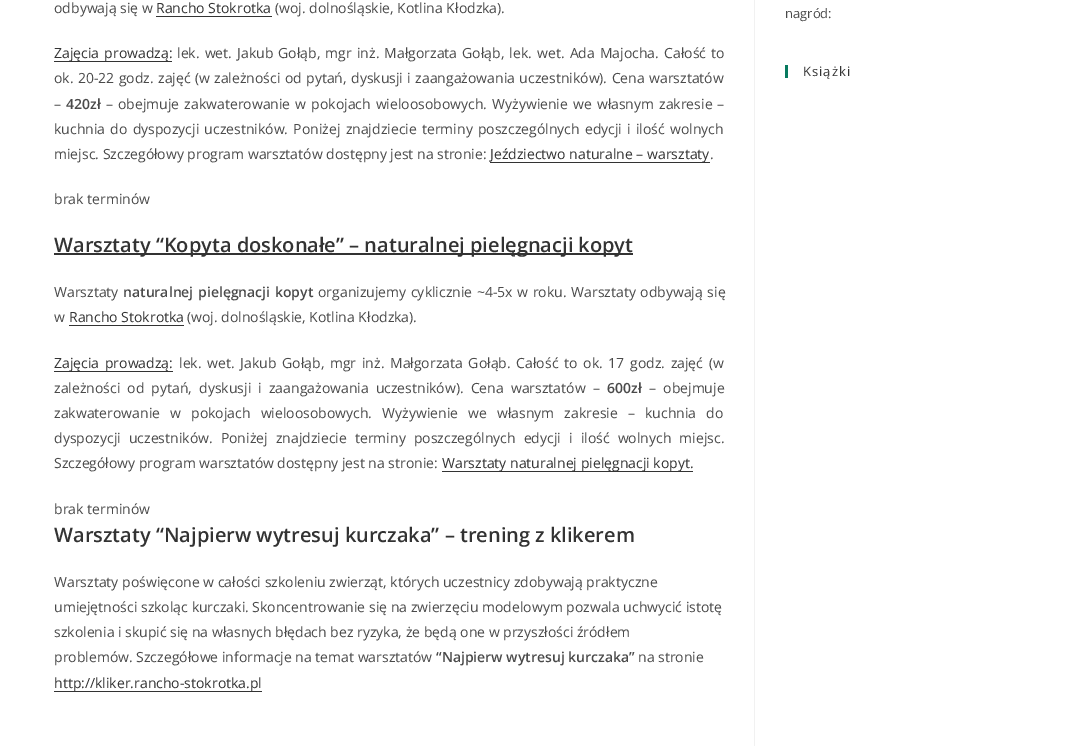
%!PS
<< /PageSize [1082 746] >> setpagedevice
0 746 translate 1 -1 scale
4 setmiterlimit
1 setgray
0 0 1082 746 rectfill
0.945 setgray
754 0 1 746 rectfill
/OpenSans-Regular [14 0 0 -14 0 0] selectfont
0.29 setgray
54 13 moveto (odbywają się w) show
0.2 setgray
156 13 moveto (Rancho Stokrotka) show
156 16 116 1 rectfill
0.29 setgray
275 13 moveto (\(woj. dolnośląskie, Kotlina Kłodzka\).) show
0.2 setgray
54 61 118 1 rectfill
54 58 moveto 1.5 0 32 (Zajęcia prowadzą:) widthshow
0.29 setgray
177 58 moveto 1.5 0 32 (lek. wet. Jakub Gołąb, mgr inż. Małgorzata Gołąb, lek. wet. Ada Majocha. Całość to) widthshow
54 83 moveto 0.75 0 32 (ok. 20-22 godz. zajęć \(w zależności od pytań, dyskusji i zaangażowania uczestników\). Cena warsztatów) widthshow
54 109 moveto (–) show
/OpenSans-SemiBold [14 0 0 -14 0 0] selectfont
66 109 moveto (420zł) show
/OpenSans-Regular [14 0 0 -14 0 0] selectfont
106 109 moveto 1.4 0 32 (– obejmuje zakwaterowanie w pokojach wieloosobowych. Wyżywienie we własnym zakresie –) widthshow
54 134 moveto 1.6 0 32 (kuchnia do dyspozycji uczestników. Poniżej znajdziecie terminy poszczególnych edycji i ilość wolnych) widthshow
54 159 moveto (miejsc. Szczegółowy program warsztatów dostępny jest na stronie:) show
0.2 setgray
490 162 220 1 rectfill
490 159 moveto (Jeździectwo naturalne – warsztaty) show
0.29 setgray
710 159 moveto (.) show
54 204 moveto (brak terminów) show
0.2 setgray
54 253 579 2 rectfill
/OpenSans-SemiBold [20 0 0 -20 0 0] selectfont
54 252 moveto (Warsztaty “Kopyta doskonałe” – naturalnej pielęgnacji kopyt) show
/OpenSans-Regular [14 0 0 -14 0 0] selectfont
0.29 setgray
54 297 moveto (Warsztaty) show
/OpenSans-SemiBold [14 0 0 -14 0 0] selectfont
123 297 moveto 1 0 32 (naturalnej pielęgnacji kopyt) widthshow
/OpenSans-Regular [14 0 0 -14 0 0] selectfont
318 297 moveto 1 0 32 (organizujemy cyklicznie ~4-5x w roku. Warsztaty odbywają się) widthshow
54 322 moveto (w) show
0.2 setgray
69 322 moveto (Rancho Stokrotka) show
69 325 115 1 rectfill
0.29 setgray
187 322 moveto (\(woj. dolnośląskie, Kotlina Kłodzka\).) show
0.2 setgray
54 371 119 1 rectfill
54 368 moveto 2.1 0 32 (Zajęcia prowadzą:) widthshow
0.29 setgray
179 368 moveto 2.1 0 32 (lek. wet. Jakub Gołąb, mgr inż. Małgorzata Gołąb. Całość to ok. 17 godz. zajęć \(w) widthshow
54 393 moveto 3.5 0 32 (zależności od pytań, dyskusji i zaangażowania uczestników\). Cena warsztatów –) widthshow
/OpenSans-SemiBold [14 0 0 -14 0 0] selectfont
607 393 moveto (600zł) show
/OpenSans-Regular [14 0 0 -14 0 0] selectfont
649 393 moveto 3.5 0 32 (– obejmuje) widthshow
54 418 moveto 6.5 0 32 (zakwaterowanie w pokojach wieloosobowych. Wyżywienie we własnym zakresie – kuchnia do) widthshow
54 443 moveto 4.5 0 32 (dyspozycji uczestników. Poniżej znajdziecie terminy poszczególnych edycji i ilość wolnych miejsc.) widthshow
54 468 moveto (Szczegółowy program warsztatów dostępny jest na stronie:) show
0.2 setgray
442 471 251 1 rectfill
442 468 moveto (Warsztaty naturalnej pielęgnacji kopyt.) show
0.29 setgray
54 514 moveto (brak terminów) show
/OpenSans-SemiBold [20 0 0 -20 0 0] selectfont
0.2 setgray
54 542 moveto (Warsztaty “Najpierw wytresuj kurczaka” – trening z klikerem) show
/OpenSans-Regular [14 0 0 -14 0 0] selectfont
0.29 setgray
54 587 moveto (Warsztaty poświęcone w całości szkoleniu zwierząt, których uczestnicy zdobywają praktyczne) show
54 612 moveto (umiejętności szkoląc kurczaki. Skoncentrowanie się na zwierzęciu modelowym pozwala uchwycić istotę) show
54 637 moveto (szkolenia i skupić się na własnych błędach bez ryzyka, że będą one w przyszłości źródłem) show
54 662 moveto (problemów. Szczegółowe informacje na temat warsztatów) show
/OpenSans-SemiBold [14 0 0 -14 0 0] selectfont
436 662 moveto (“Najpierw wytresuj kurczaka”) show
/OpenSans-Regular [14 0 0 -14 0 0] selectfont
638 662 moveto (na stronie) show
0.2 setgray
54 691 208 1 rectfill
54 688 moveto (http://kliker.rancho-stokrotka.pl) show
/OpenSans-Regular [13 0 0 -13 0 0] selectfont
0.29 setgray
785 18 moveto (nagród:) show
0.027 0.478 0.373 setrgbcolor
785 65 3 13 rectfill
0.2 setgray
803 76 moveto 1 0 (Książki) ashow
showpage
